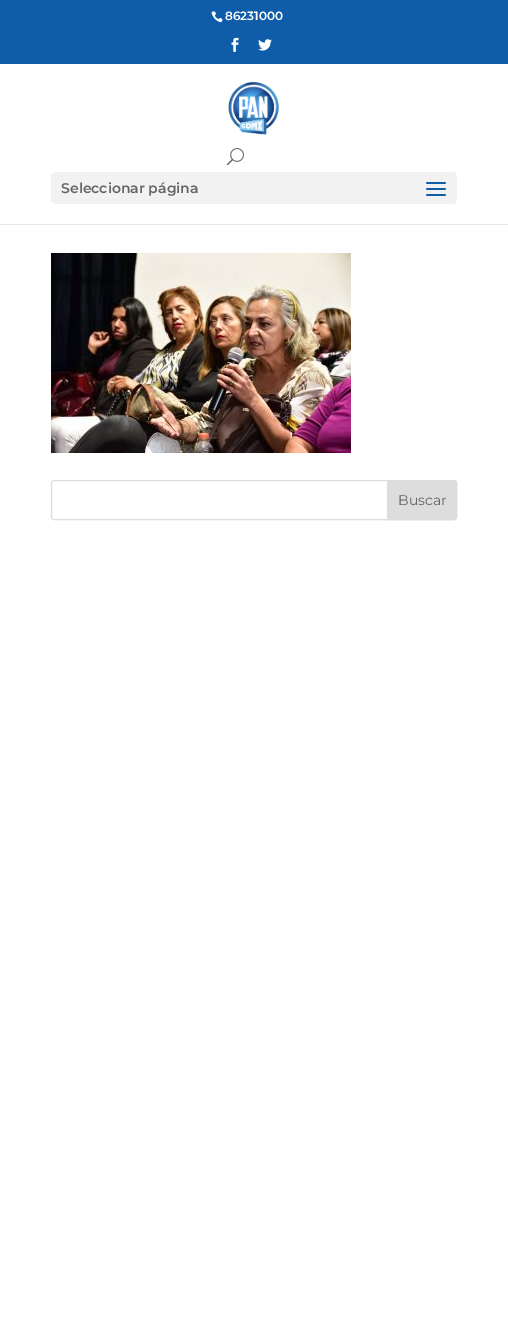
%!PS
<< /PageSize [508 1341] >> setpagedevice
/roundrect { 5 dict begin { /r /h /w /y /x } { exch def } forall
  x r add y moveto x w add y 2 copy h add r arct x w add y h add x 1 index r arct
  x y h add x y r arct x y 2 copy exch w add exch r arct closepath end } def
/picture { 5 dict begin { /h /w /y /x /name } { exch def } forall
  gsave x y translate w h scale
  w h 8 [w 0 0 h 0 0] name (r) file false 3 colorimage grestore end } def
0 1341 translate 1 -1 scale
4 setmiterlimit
1 setgray
0 0 508 1341 rectfill
0.059 0.361 0.659 setrgbcolor
0 0 508 64 rectfill
(img1.rgb) 211 11 12 12 picture
/Montserrat-SemiBold [12 0 0 -12 0 0] selectfont
1 setgray
225 20 moveto (86231000) show
(img2.rgb) 231 37 8 15 picture
(img3.rgb) 258 39 14 12 picture
0.902 setgray
0 224 508 1 rectfill
(img4.rgb) 228 81 51 54 picture
(img5.rgb) 227 148 17 18 picture
0.949 setgray
51 172 406 32 5 roundrect fill
/Montserrat-SemiBold [14 0 0 -14 0 0] selectfont
0.4 setgray
61 193 moveto (Seleccionar página) show
(img6.rgb) 426 182 20 14 picture
(img7.rgb) 51 253 300 200 picture
0.867 setgray
51.5 480.5 405 39 2.5 roundrect stroke
newpath 387.5 480.5 moveto 454 480.5 lineto 455.5 480.5 456.5 481.5 456.5 483 curveto 456.5 517 lineto 456.5 518.5 455.5 519.5 454 519.5 curveto 387.5 519.5 lineto closepath gsave fill grestore
stroke
/Montserrat-Regular [14 0 0 -14 0 0] selectfont
0.4 setgray
398 505 moveto (Buscar) show
showpage
